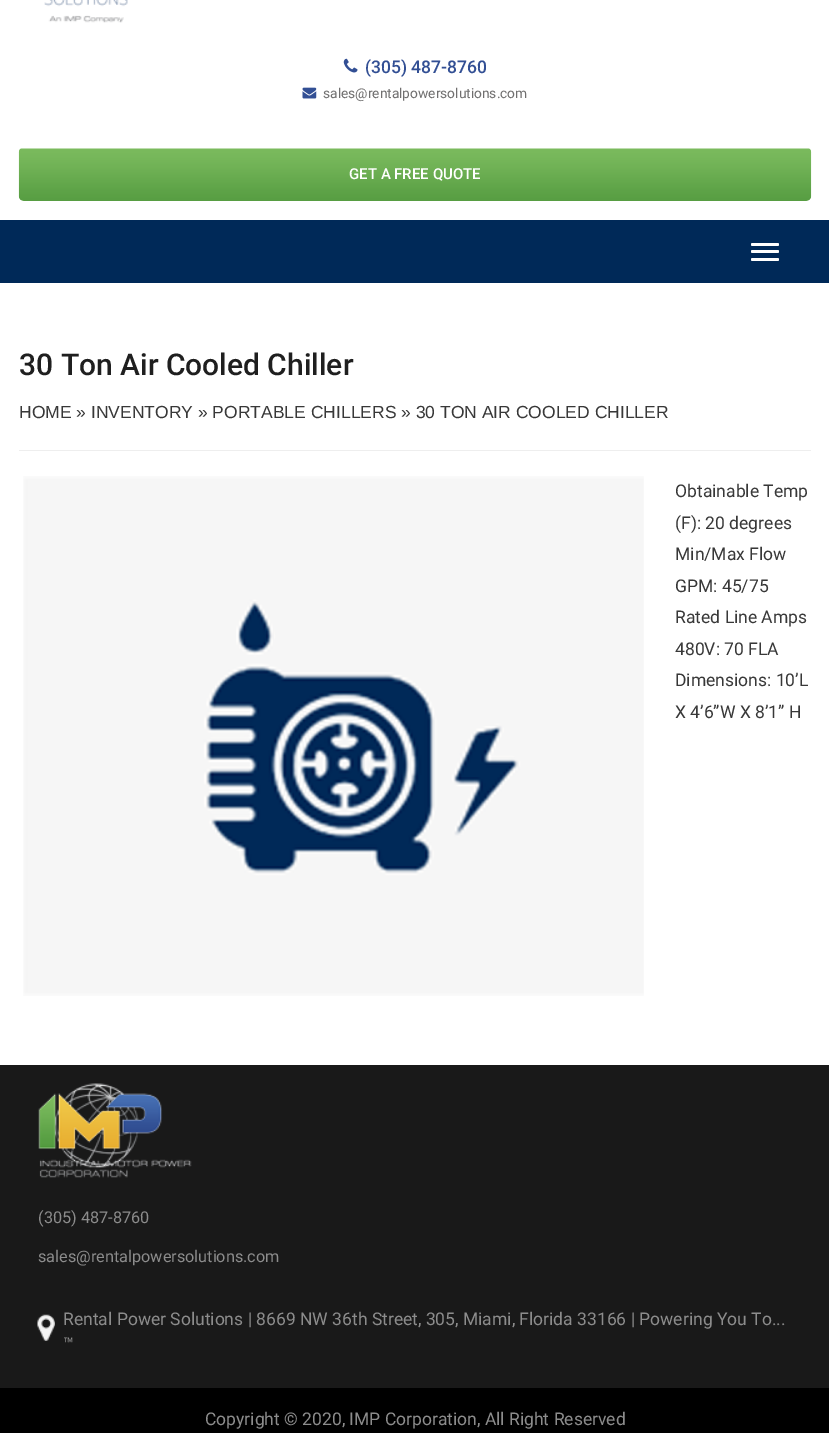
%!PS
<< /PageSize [829 1433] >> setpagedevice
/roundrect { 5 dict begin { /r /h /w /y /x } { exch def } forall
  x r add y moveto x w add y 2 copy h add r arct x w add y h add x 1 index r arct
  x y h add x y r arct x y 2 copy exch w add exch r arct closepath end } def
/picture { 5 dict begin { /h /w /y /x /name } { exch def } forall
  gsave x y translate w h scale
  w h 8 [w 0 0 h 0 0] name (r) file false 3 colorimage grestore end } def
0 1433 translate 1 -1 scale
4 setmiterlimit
1 setgray
0 0 829 1433 rectfill
(img1.rgb) 44 0 84 23 picture
(img2.rgb) 343 58 15 15 picture
/Roboto-Medium [17.5 0 0 -17.5 0 0] selectfont
0.196 0.31 0.58 setrgbcolor
365 73 moveto (\(305\) 487-8760) show
(img3.rgb) 302 87 15 12 picture
/Roboto-Regular [13.75 0 0 -13.75 0 0] selectfont
0.439 0.435 0.435 setrgbcolor
323 98 moveto (sales@rentalpowersolutions.com) show
(img4.rgb) 18 148 794 53 picture
/Roboto-Medium [15 0 0 -15 0 0] selectfont
1 setgray
349 179 moveto (GET A FREE QUOTE) show
0 0.161 0.345 setrgbcolor
0 220 829 63 rectfill
1 setgray
751 243 28 3 1.5 roundrect fill
751 250 28 3 1.5 roundrect fill
751 258 28 3 1.5 roundrect fill
/Roboto-Medium [30 0 0 -30 0 0] selectfont
0.122 setgray
19 375 moveto (30 Ton Air Cooled Chiller) show
/LiberationSans-Regular [17.5 0 0 -17.5 0 0] selectfont
0.22 setgray
19 418 moveto (HOME » INVENTORY » PORTABLE CHILLERS » 30 TON AIR COOLED CHILLER) show
0.933 setgray
19 450 792 1 rectfill
(img5.rgb) 23 476 621 520 picture
/Roboto-Regular [17.5 0 0 -17.5 0 0] selectfont
0.22 setgray
675 497 moveto (Obtainable Temp) show
675 529 moveto (\(F\): 20 degrees) show
675 560 moveto (Min/Max Flow) show
675 592 moveto (GPM: 45/75) show
675 623 moveto (Rated Line Amps) show
675 655 moveto (480V: 70 FLA) show
675 686 moveto (Dimensions: 10’L) show
675 718 moveto (X 4’6”W X 8’1” H) show
0.098 setgray
0 1065 829 323 rectfill
(img6.rgb) 38 1083 154 95 picture
/Roboto-Regular [16.25 0 0 -16.25 0 0] selectfont
0.549 setgray
38 1223 moveto (\(305\) 487-8760) show
38 1262 moveto (sales@rentalpowersolutions.com) show
(img7.rgb) 37 1314 18 27 picture
/Roboto-Regular [17.5 0 0 -17.5 0 0] selectfont
63 1325 moveto (Rental Power Solutions | 8669 NW 36th Street, 305, Miami, Florida 33166 | Powering You To...) show
63 1350 moveto (™) show
0 setgray
0 1388 829 45 rectfill
0.549 setgray
205 1425 moveto (Copyright © 2020, IMP Corporation, All Right Reserved) show
showpage
